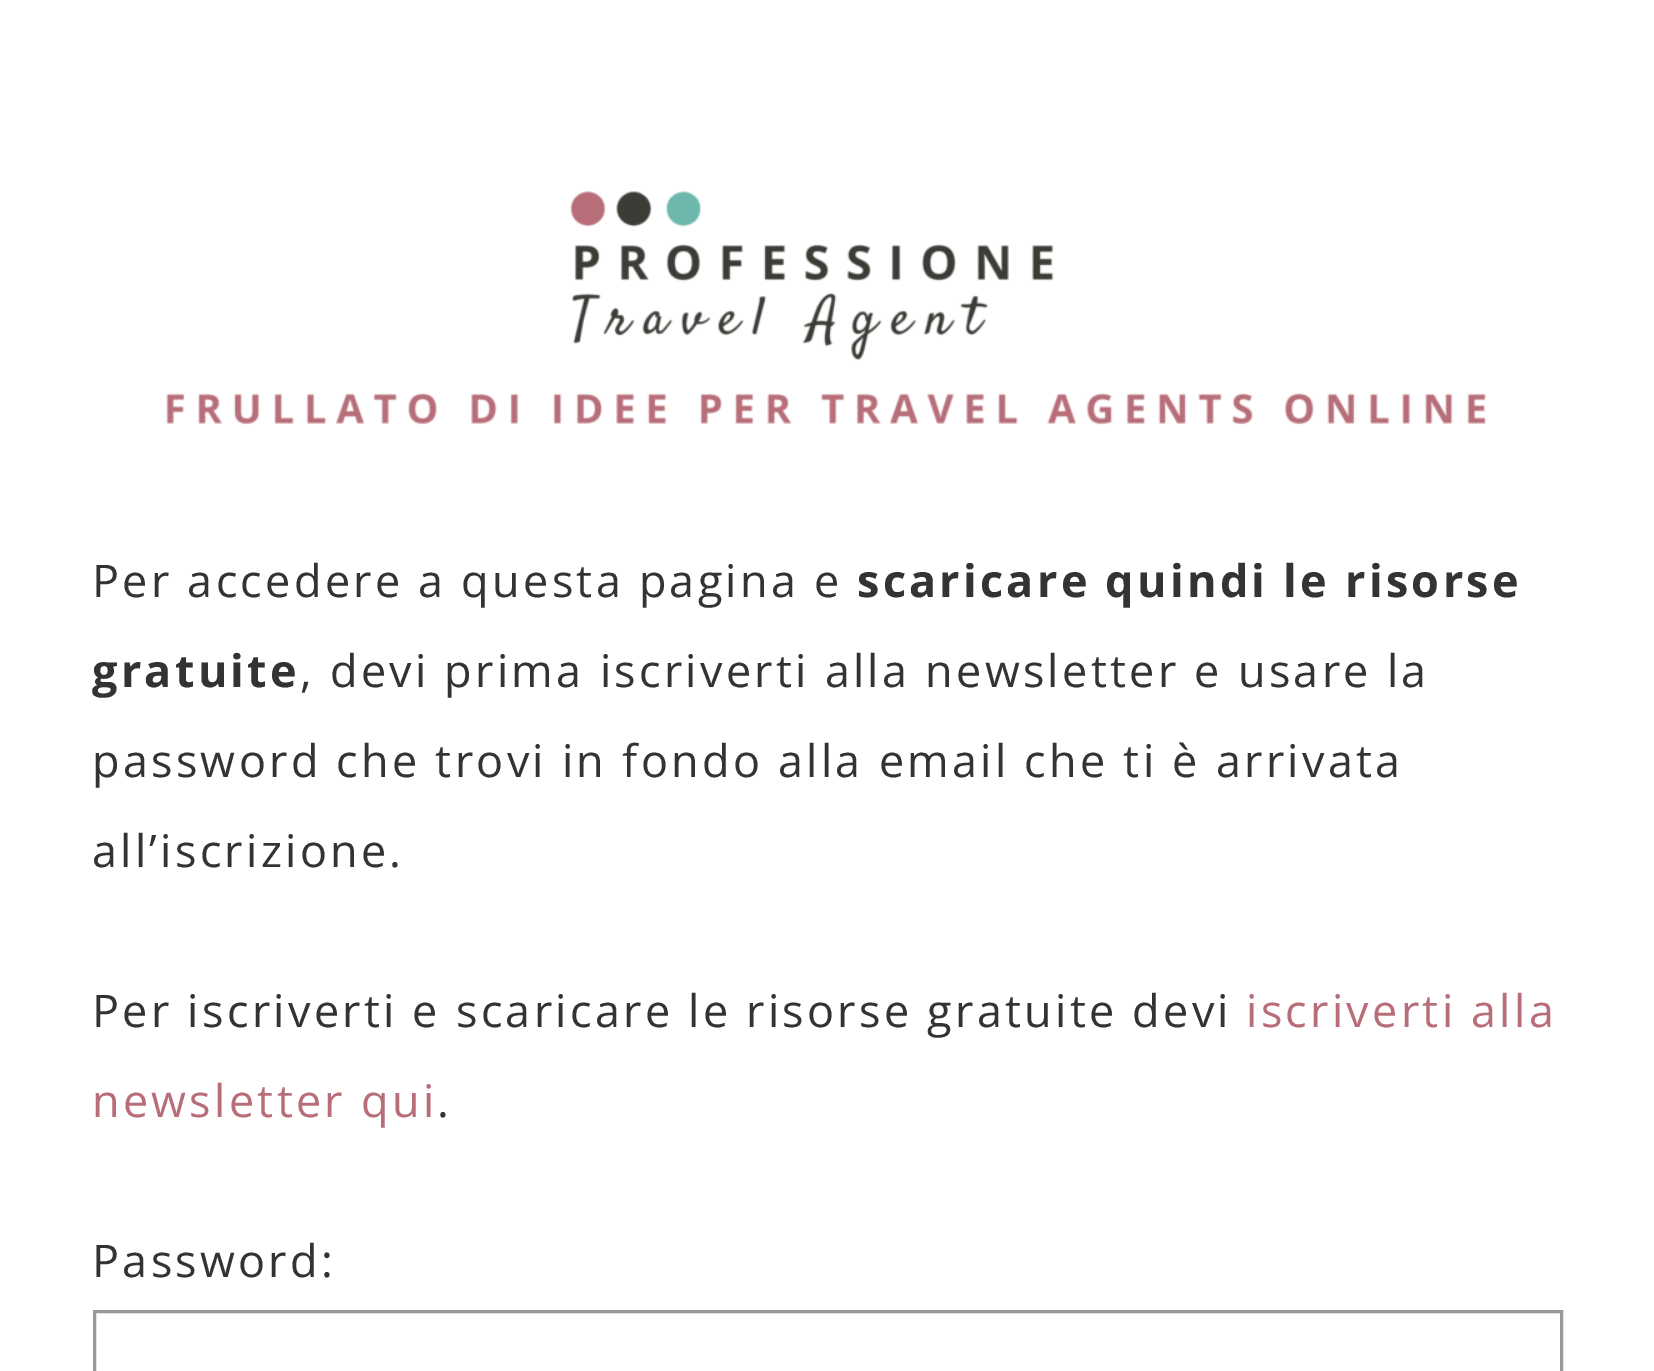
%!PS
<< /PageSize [1654 1371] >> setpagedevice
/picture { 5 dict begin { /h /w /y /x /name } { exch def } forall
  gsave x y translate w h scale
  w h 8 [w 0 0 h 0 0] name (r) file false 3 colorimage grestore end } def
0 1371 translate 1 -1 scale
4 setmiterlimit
1 setgray
0 0 1654 1371 rectfill
(img1.rgb) 166 191 1321 234 picture
/OpenSans-Regular [45 0 0 -45 0 0] selectfont
0.2 setgray
92 597 moveto 3.25 0 (Per accedere a questa pagina e) ashow
/OpenSans-Bold [45 0 0 -45 0 0] selectfont
857 597 moveto 3.25 0 (scaricare quindi le risorse) ashow
92 687 moveto 3.25 0 (gratuite) ashow
/OpenSans-Regular [45 0 0 -45 0 0] selectfont
300 687 moveto 3.25 0 (, devi prima iscriverti alla newsletter e usare la) ashow
92 777 moveto 3.25 0 (password che trovi in fondo alla email che ti è arrivata) ashow
92 867 moveto 3.25 0 (all’iscrizione.) ashow
92 1027 moveto 3.25 0 (Per iscriverti e scaricare le risorse gratuite devi) ashow
0.718 0.431 0.475 setrgbcolor
1246 1027 moveto 3.25 0 (iscriverti alla) ashow
92 1117 moveto 3.25 0 (newsletter qui) ashow
0.2 setgray
437 1117 moveto 3.25 0 (.) ashow
92 1277 moveto 3.25 0 (Password:) ashow
0.6 setgray
3 setlinewidth
94.5 1311.5 1467 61 rectstroke
showpage
